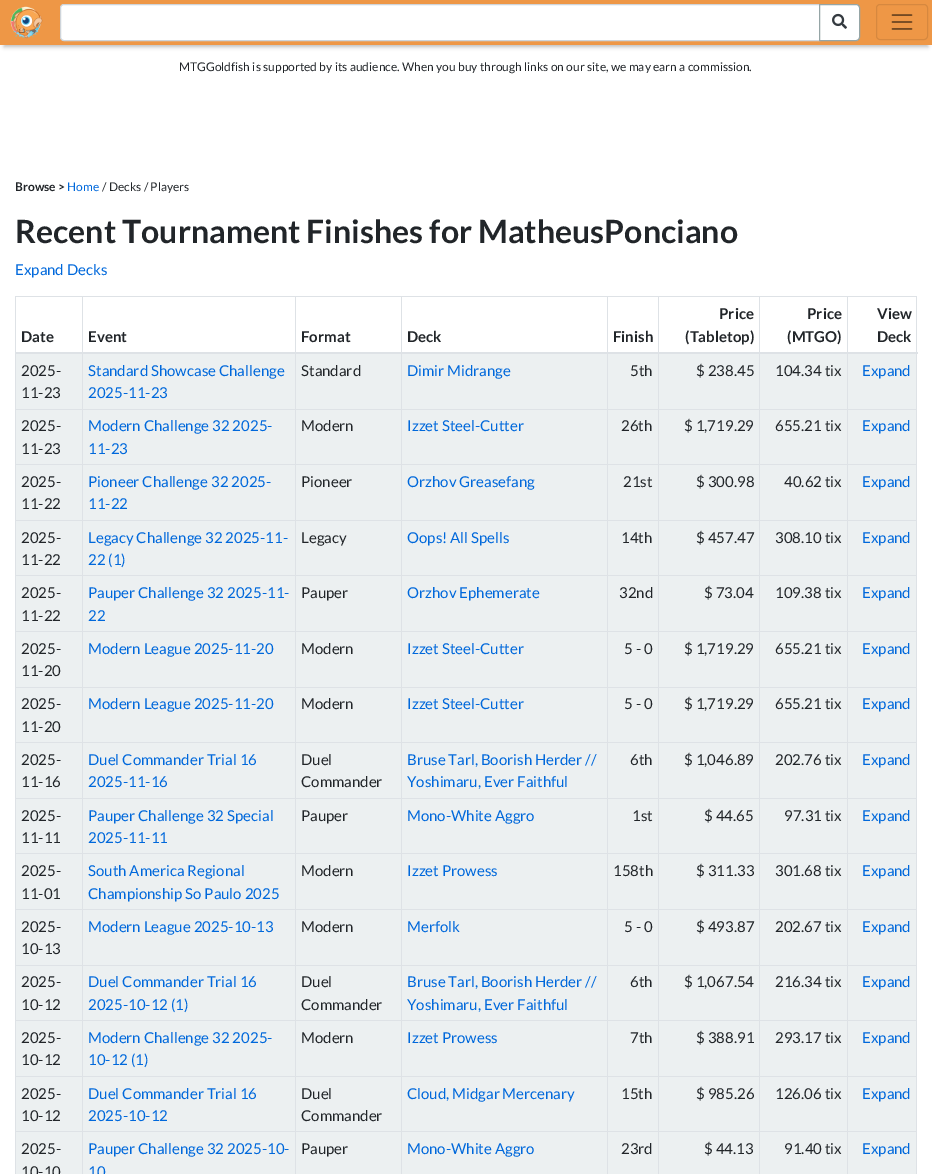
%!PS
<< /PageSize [932 1174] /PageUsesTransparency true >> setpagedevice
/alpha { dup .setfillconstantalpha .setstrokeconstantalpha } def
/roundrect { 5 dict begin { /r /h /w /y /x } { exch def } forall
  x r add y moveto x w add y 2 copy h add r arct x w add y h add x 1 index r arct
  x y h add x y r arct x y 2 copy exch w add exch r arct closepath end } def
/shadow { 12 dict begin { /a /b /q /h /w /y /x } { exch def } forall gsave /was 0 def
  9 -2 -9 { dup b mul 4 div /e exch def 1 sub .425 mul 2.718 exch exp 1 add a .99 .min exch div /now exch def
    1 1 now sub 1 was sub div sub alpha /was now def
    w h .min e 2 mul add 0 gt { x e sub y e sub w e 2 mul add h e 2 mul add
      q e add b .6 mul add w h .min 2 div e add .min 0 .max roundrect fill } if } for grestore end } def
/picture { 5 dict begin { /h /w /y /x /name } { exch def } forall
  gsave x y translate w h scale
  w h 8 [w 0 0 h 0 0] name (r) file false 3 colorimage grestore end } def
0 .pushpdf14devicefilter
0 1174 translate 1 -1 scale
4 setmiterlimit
1 setgray
0 0 932 1174 rectfill
0 setgray
4 10 924 37 0 2 0.25 shadow
0.933 0.592 0.275 setrgbcolor
0 0 932 45 rectfill
(img1.rgb) 10 6 33 33 picture
1 setgray
newpath 64 4.5 moveto 819.5 4.5 lineto 819.5 40.5 lineto 64 40.5 lineto 62 40.5 60.5 39 60.5 37 curveto 60.5 8 lineto 60.5 6 62 4.5 64 4.5 curveto closepath gsave fill grestore
0.808 0.831 0.855 setrgbcolor
stroke
1 setgray
newpath 819.5 4.5 moveto 856 4.5 lineto 858 4.5 859.5 6 859.5 8 curveto 859.5 37 lineto 859.5 39 858 40.5 856 40.5 curveto 819.5 40.5 lineto closepath gsave fill grestore
0.584 0.647 0.651 setrgbcolor
stroke
(img2.rgb) 832 13 15 16 picture
0.839 0.533 0.247 setrgbcolor
876.5 4.5 51 35 3.5 roundrect stroke
(img3.rgb) 891 14 22 16 picture
/Lato-Regular [12 0 0 -12 0 0] selectfont
0.129 0.145 0.161 setrgbcolor
179 71 moveto (MTGGoldfish is supported by its audience. When you buy through links on our site, we may earn a commission.) show
/Lato-Bold [12 0 0 -12 0 0] selectfont
15 191 moveto (Browse >) show
/Lato-Regular [12 0 0 -12 0 0] selectfont
0 0.408 0.859 setrgbcolor
67 191 moveto (Home) show
0.129 0.145 0.161 setrgbcolor
102 191 moveto (/ Decks / Players) show
/Lato-Bold [32 0 0 -32 0 0] selectfont
15 243 moveto (Recent Tournament Finishes for MatheusPonciano) show
/Lato-Regular [15 0 0 -15 0 0] selectfont
0 0.408 0.859 setrgbcolor
15 275 moveto (Expand Decks) show
0.871 0.886 0.902 setrgbcolor
15 296 902 1 rectfill
916 296 1 878 rectfill
15 296 1 878 rectfill
/Lato-Bold [15 0 0 -15 0 0] selectfont
0.129 0.145 0.161 setrgbcolor
21 342 moveto (Date) show
88 342 moveto (Event) show
301 342 moveto (Format) show
407 342 moveto (Deck) show
613 342 moveto (Finish) show
719 319 moveto (Price) show
685 342 moveto (\(Tabletop\)) show
807 319 moveto (Price) show
787 342 moveto (\(MTGO\)) show
0.925 0.941 0.945 setrgbcolor
16 354 900 55 rectfill
0.871 0.886 0.902 setrgbcolor
847 409 70 1 rectfill
0.925 0.941 0.945 setrgbcolor
16 410 900 54 rectfill
0.871 0.886 0.902 setrgbcolor
847 464 70 1 rectfill
0.925 0.941 0.945 setrgbcolor
16 465 900 55 rectfill
0.871 0.886 0.902 setrgbcolor
847 520 70 1 rectfill
0.925 0.941 0.945 setrgbcolor
16 521 900 54 rectfill
0.871 0.886 0.902 setrgbcolor
847 575 70 1 rectfill
0.925 0.941 0.945 setrgbcolor
16 576 900 55 rectfill
0.871 0.886 0.902 setrgbcolor
847 631 70 1 rectfill
0.925 0.941 0.945 setrgbcolor
16 632 900 55 rectfill
0.871 0.886 0.902 setrgbcolor
847 687 70 1 rectfill
0.925 0.941 0.945 setrgbcolor
16 688 900 54 rectfill
0.871 0.886 0.902 setrgbcolor
847 742 70 1 rectfill
0.925 0.941 0.945 setrgbcolor
16 743 900 55 rectfill
0.871 0.886 0.902 setrgbcolor
847 798 70 1 rectfill
0.925 0.941 0.945 setrgbcolor
16 799 900 54 rectfill
0.871 0.886 0.902 setrgbcolor
847 853 70 1 rectfill
0.925 0.941 0.945 setrgbcolor
16 854 900 55 rectfill
0.871 0.886 0.902 setrgbcolor
847 909 70 1 rectfill
0.925 0.941 0.945 setrgbcolor
16 910 900 55 rectfill
0.871 0.886 0.902 setrgbcolor
847 965 70 1 rectfill
0.925 0.941 0.945 setrgbcolor
16 966 900 54 rectfill
0.871 0.886 0.902 setrgbcolor
847 1020 70 1 rectfill
0.925 0.941 0.945 setrgbcolor
16 1021 900 55 rectfill
0.871 0.886 0.902 setrgbcolor
847 1076 70 1 rectfill
0.925 0.941 0.945 setrgbcolor
16 1077 900 54 rectfill
0.871 0.886 0.902 setrgbcolor
847 1131 70 1 rectfill
0.925 0.941 0.945 setrgbcolor
16 1132 900 42 rectfill
0.871 0.886 0.902 setrgbcolor
847 1131 1 43 rectfill
759 1131 89 1 rectfill
847 1076 1 56 rectfill
759 1076 89 1 rectfill
847 1020 1 57 rectfill
759 1020 89 1 rectfill
847 965 1 56 rectfill
759 965 89 1 rectfill
847 909 1 57 rectfill
759 909 89 1 rectfill
847 853 1 57 rectfill
759 853 89 1 rectfill
847 798 1 56 rectfill
759 798 89 1 rectfill
847 742 1 57 rectfill
759 742 89 1 rectfill
847 687 1 56 rectfill
759 687 89 1 rectfill
847 631 1 57 rectfill
759 631 89 1 rectfill
847 575 1 57 rectfill
759 575 89 1 rectfill
847 520 1 56 rectfill
759 520 89 1 rectfill
847 464 1 57 rectfill
759 464 89 1 rectfill
847 409 1 56 rectfill
759 409 89 1 rectfill
759 1131 1 43 rectfill
658 1131 102 1 rectfill
759 1076 1 56 rectfill
658 1076 102 1 rectfill
759 1020 1 57 rectfill
658 1020 102 1 rectfill
759 965 1 56 rectfill
658 965 102 1 rectfill
759 909 1 57 rectfill
658 909 102 1 rectfill
759 853 1 57 rectfill
658 853 102 1 rectfill
759 798 1 56 rectfill
658 798 102 1 rectfill
759 742 1 57 rectfill
658 742 102 1 rectfill
759 687 1 56 rectfill
658 687 102 1 rectfill
759 631 1 57 rectfill
658 631 102 1 rectfill
759 575 1 57 rectfill
658 575 102 1 rectfill
759 520 1 56 rectfill
658 520 102 1 rectfill
759 464 1 57 rectfill
658 464 102 1 rectfill
759 409 1 56 rectfill
658 409 102 1 rectfill
658 1131 1 43 rectfill
607 1131 52 1 rectfill
658 1076 1 56 rectfill
607 1076 52 1 rectfill
658 1020 1 57 rectfill
607 1020 52 1 rectfill
658 965 1 56 rectfill
607 965 52 1 rectfill
658 909 1 57 rectfill
607 909 52 1 rectfill
658 853 1 57 rectfill
607 853 52 1 rectfill
658 798 1 56 rectfill
607 798 52 1 rectfill
658 742 1 57 rectfill
607 742 52 1 rectfill
658 687 1 56 rectfill
607 687 52 1 rectfill
658 631 1 57 rectfill
607 631 52 1 rectfill
658 575 1 57 rectfill
607 575 52 1 rectfill
658 520 1 56 rectfill
607 520 52 1 rectfill
658 464 1 57 rectfill
607 464 52 1 rectfill
658 409 1 56 rectfill
607 409 52 1 rectfill
607 1131 1 43 rectfill
401 1131 207 1 rectfill
607 1076 1 56 rectfill
401 1076 207 1 rectfill
607 1020 1 57 rectfill
401 1020 207 1 rectfill
607 965 1 56 rectfill
401 965 207 1 rectfill
607 909 1 57 rectfill
401 909 207 1 rectfill
607 853 1 57 rectfill
401 853 207 1 rectfill
607 798 1 56 rectfill
401 798 207 1 rectfill
607 742 1 57 rectfill
401 742 207 1 rectfill
607 687 1 56 rectfill
401 687 207 1 rectfill
607 631 1 57 rectfill
401 631 207 1 rectfill
607 575 1 57 rectfill
401 575 207 1 rectfill
607 520 1 56 rectfill
401 520 207 1 rectfill
607 464 1 57 rectfill
401 464 207 1 rectfill
607 409 1 56 rectfill
401 409 207 1 rectfill
401 1131 1 43 rectfill
295 1131 107 1 rectfill
401 1076 1 56 rectfill
295 1076 107 1 rectfill
401 1020 1 57 rectfill
295 1020 107 1 rectfill
401 965 1 56 rectfill
295 965 107 1 rectfill
401 909 1 57 rectfill
295 909 107 1 rectfill
401 853 1 57 rectfill
295 853 107 1 rectfill
401 798 1 56 rectfill
295 798 107 1 rectfill
401 742 1 57 rectfill
295 742 107 1 rectfill
401 687 1 56 rectfill
295 687 107 1 rectfill
401 631 1 57 rectfill
295 631 107 1 rectfill
401 575 1 57 rectfill
295 575 107 1 rectfill
401 520 1 56 rectfill
295 520 107 1 rectfill
401 464 1 57 rectfill
295 464 107 1 rectfill
401 409 1 56 rectfill
295 409 107 1 rectfill
295 1131 1 43 rectfill
82 1131 214 1 rectfill
295 1076 1 56 rectfill
82 1076 214 1 rectfill
295 1020 1 57 rectfill
82 1020 214 1 rectfill
295 965 1 56 rectfill
82 965 214 1 rectfill
295 909 1 57 rectfill
82 909 214 1 rectfill
295 853 1 57 rectfill
82 853 214 1 rectfill
295 798 1 56 rectfill
82 798 214 1 rectfill
295 742 1 57 rectfill
82 742 214 1 rectfill
295 687 1 56 rectfill
82 687 214 1 rectfill
295 631 1 57 rectfill
82 631 214 1 rectfill
295 575 1 57 rectfill
82 575 214 1 rectfill
295 520 1 56 rectfill
82 520 214 1 rectfill
295 464 1 57 rectfill
82 464 214 1 rectfill
295 409 1 56 rectfill
82 409 214 1 rectfill
82 1131 1 43 rectfill
15 1131 68 1 rectfill
82 1076 1 56 rectfill
15 1076 68 1 rectfill
82 1020 1 57 rectfill
15 1020 68 1 rectfill
82 965 1 56 rectfill
15 965 68 1 rectfill
82 909 1 57 rectfill
15 909 68 1 rectfill
82 853 1 57 rectfill
15 853 68 1 rectfill
82 798 1 56 rectfill
15 798 68 1 rectfill
82 742 1 57 rectfill
15 742 68 1 rectfill
82 687 1 56 rectfill
15 687 68 1 rectfill
82 631 1 57 rectfill
15 631 68 1 rectfill
82 575 1 57 rectfill
15 575 68 1 rectfill
82 520 1 56 rectfill
15 520 68 1 rectfill
82 464 1 57 rectfill
15 464 68 1 rectfill
82 409 1 56 rectfill
15 409 68 1 rectfill
82 296 1 114 rectfill
295 296 1 114 rectfill
401 296 1 114 rectfill
607 296 1 114 rectfill
658 296 1 114 rectfill
759 296 1 114 rectfill
847 296 1 114 rectfill
15 352 903 2 rectfill
0.129 0.145 0.161 setrgbcolor
877 319 moveto (View) show
877 342 moveto (Deck) show
/Lato-Regular [15 0 0 -15 0 0] selectfont
21 376 moveto (2025-) show
21 398 moveto (11-23) show
0 0.408 0.859 setrgbcolor
88 376 moveto (Standard Showcase Challenge) show
88 398 moveto (2025-11-23) show
0.129 0.145 0.161 setrgbcolor
301 376 moveto (Standard) show
0 0.408 0.859 setrgbcolor
407 376 moveto (Dimir Midrange) show
0.129 0.145 0.161 setrgbcolor
630 376 moveto (5th) show
696 376 moveto ($ 238.45) show
775 376 moveto (104.34 tix) show
0 0.408 0.859 setrgbcolor
862 376 moveto (Expand) show
0.129 0.145 0.161 setrgbcolor
21 431 moveto (2025-) show
21 454 moveto (11-23) show
0 0.408 0.859 setrgbcolor
88 431 moveto (Modern Challenge 32 2025-) show
88 454 moveto (11-23) show
0.129 0.145 0.161 setrgbcolor
301 431 moveto (Modern) show
0 0.408 0.859 setrgbcolor
407 431 moveto (Izzet Steel-Cutter) show
0.129 0.145 0.161 setrgbcolor
621 431 moveto (26th) show
684 431 moveto ($ 1,719.29) show
775 431 moveto (655.21 tix) show
0 0.408 0.859 setrgbcolor
862 431 moveto (Expand) show
0.129 0.145 0.161 setrgbcolor
21 487 moveto (2025-) show
21 509 moveto (11-22) show
0 0.408 0.859 setrgbcolor
88 487 moveto (Pioneer Challenge 32 2025-) show
88 509 moveto (11-22) show
0.129 0.145 0.161 setrgbcolor
301 487 moveto (Pioneer) show
0 0.408 0.859 setrgbcolor
407 487 moveto (Orzhov Greasefang) show
0.129 0.145 0.161 setrgbcolor
623 487 moveto (21st) show
696 487 moveto ($ 300.98) show
784 487 moveto (40.62 tix) show
0 0.408 0.859 setrgbcolor
862 487 moveto (Expand) show
0.129 0.145 0.161 setrgbcolor
21 543 moveto (2025-) show
21 565 moveto (11-22) show
0 0.408 0.859 setrgbcolor
88 543 moveto (Legacy Challenge 32 2025-11-) show
88 565 moveto (22 \(1\)) show
0.129 0.145 0.161 setrgbcolor
301 543 moveto (Legacy) show
0 0.408 0.859 setrgbcolor
407 543 moveto (Oops! All Spells) show
0.129 0.145 0.161 setrgbcolor
621 543 moveto (14th) show
696 543 moveto ($ 457.47) show
775 543 moveto (308.10 tix) show
0 0.408 0.859 setrgbcolor
862 543 moveto (Expand) show
0.129 0.145 0.161 setrgbcolor
21 598 moveto (2025-) show
21 621 moveto (11-22) show
0 0.408 0.859 setrgbcolor
88 598 moveto (Pauper Challenge 32 2025-11-) show
88 621 moveto (22) show
0.129 0.145 0.161 setrgbcolor
301 598 moveto (Pauper) show
0 0.408 0.859 setrgbcolor
407 598 moveto (Orzhov Ephemerate) show
0.129 0.145 0.161 setrgbcolor
619 598 moveto (32nd) show
704 598 moveto ($ 73.04) show
775 598 moveto (109.38 tix) show
0 0.408 0.859 setrgbcolor
862 598 moveto (Expand) show
0.129 0.145 0.161 setrgbcolor
21 654 moveto (2025-) show
21 676 moveto (11-20) show
0 0.408 0.859 setrgbcolor
88 654 moveto (Modern League 2025-11-20) show
0.129 0.145 0.161 setrgbcolor
301 654 moveto (Modern) show
0 0.408 0.859 setrgbcolor
407 654 moveto (Izzet Steel-Cutter) show
0.129 0.145 0.161 setrgbcolor
624 654 moveto (5 - 0) show
684 654 moveto ($ 1,719.29) show
775 654 moveto (655.21 tix) show
0 0.408 0.859 setrgbcolor
862 654 moveto (Expand) show
0.129 0.145 0.161 setrgbcolor
21 709 moveto (2025-) show
21 732 moveto (11-20) show
0 0.408 0.859 setrgbcolor
88 709 moveto (Modern League 2025-11-20) show
0.129 0.145 0.161 setrgbcolor
301 709 moveto (Modern) show
0 0.408 0.859 setrgbcolor
407 709 moveto (Izzet Steel-Cutter) show
0.129 0.145 0.161 setrgbcolor
624 709 moveto (5 - 0) show
684 709 moveto ($ 1,719.29) show
775 709 moveto (655.21 tix) show
0 0.408 0.859 setrgbcolor
862 709 moveto (Expand) show
0.129 0.145 0.161 setrgbcolor
21 765 moveto (2025-) show
21 787 moveto (11-16) show
0 0.408 0.859 setrgbcolor
88 765 moveto (Duel Commander Trial 16) show
88 787 moveto (2025-11-16) show
0.129 0.145 0.161 setrgbcolor
301 765 moveto (Duel) show
301 787 moveto (Commander) show
0 0.408 0.859 setrgbcolor
407 765 moveto (Bruse Tarl, Boorish Herder //) show
407 787 moveto (Yoshimaru, Ever Faithful) show
0.129 0.145 0.161 setrgbcolor
630 765 moveto (6th) show
684 765 moveto ($ 1,046.89) show
775 765 moveto (202.76 tix) show
0 0.408 0.859 setrgbcolor
862 765 moveto (Expand) show
0.129 0.145 0.161 setrgbcolor
21 821 moveto (2025-) show
21 843 moveto (11-11) show
0 0.408 0.859 setrgbcolor
88 821 moveto (Pauper Challenge 32 Special) show
88 843 moveto (2025-11-11) show
0.129 0.145 0.161 setrgbcolor
301 821 moveto (Pauper) show
0 0.408 0.859 setrgbcolor
407 821 moveto (Mono-White Aggro) show
0.129 0.145 0.161 setrgbcolor
632 821 moveto (1st) show
704 821 moveto ($ 44.65) show
784 821 moveto (97.31 tix) show
0 0.408 0.859 setrgbcolor
862 821 moveto (Expand) show
0.129 0.145 0.161 setrgbcolor
21 876 moveto (2025-) show
21 899 moveto (11-01) show
0 0.408 0.859 setrgbcolor
88 876 moveto (South America Regional) show
88 899 moveto (Championship So Paulo 2025) show
0.129 0.145 0.161 setrgbcolor
301 876 moveto (Modern) show
0 0.408 0.859 setrgbcolor
407 876 moveto (Izzet Prowess) show
0.129 0.145 0.161 setrgbcolor
613 876 moveto (158th) show
696 876 moveto ($ 311.33) show
775 876 moveto (301.68 tix) show
0 0.408 0.859 setrgbcolor
862 876 moveto (Expand) show
0.129 0.145 0.161 setrgbcolor
21 932 moveto (2025-) show
21 954 moveto (10-13) show
0 0.408 0.859 setrgbcolor
88 932 moveto (Modern League 2025-10-13) show
0.129 0.145 0.161 setrgbcolor
301 932 moveto (Modern) show
0 0.408 0.859 setrgbcolor
407 932 moveto (Merfolk) show
0.129 0.145 0.161 setrgbcolor
624 932 moveto (5 - 0) show
696 932 moveto ($ 493.87) show
775 932 moveto (202.67 tix) show
0 0.408 0.859 setrgbcolor
862 932 moveto (Expand) show
0.129 0.145 0.161 setrgbcolor
21 987 moveto (2025-) show
21 1010 moveto (10-12) show
0 0.408 0.859 setrgbcolor
88 987 moveto (Duel Commander Trial 16) show
88 1010 moveto (2025-10-12 \(1\)) show
0.129 0.145 0.161 setrgbcolor
301 987 moveto (Duel) show
301 1010 moveto (Commander) show
0 0.408 0.859 setrgbcolor
407 987 moveto (Bruse Tarl, Boorish Herder //) show
407 1010 moveto (Yoshimaru, Ever Faithful) show
0.129 0.145 0.161 setrgbcolor
630 987 moveto (6th) show
684 987 moveto ($ 1,067.54) show
775 987 moveto (216.34 tix) show
0 0.408 0.859 setrgbcolor
862 987 moveto (Expand) show
0.129 0.145 0.161 setrgbcolor
21 1043 moveto (2025-) show
21 1065 moveto (10-12) show
0 0.408 0.859 setrgbcolor
88 1043 moveto (Modern Challenge 32 2025-) show
88 1065 moveto (10-12 \(1\)) show
0.129 0.145 0.161 setrgbcolor
301 1043 moveto (Modern) show
0 0.408 0.859 setrgbcolor
407 1043 moveto (Izzet Prowess) show
0.129 0.145 0.161 setrgbcolor
630 1043 moveto (7th) show
696 1043 moveto ($ 388.91) show
775 1043 moveto (293.17 tix) show
0 0.408 0.859 setrgbcolor
862 1043 moveto (Expand) show
0.129 0.145 0.161 setrgbcolor
21 1099 moveto (2025-) show
21 1121 moveto (10-12) show
0 0.408 0.859 setrgbcolor
88 1099 moveto (Duel Commander Trial 16) show
88 1121 moveto (2025-10-12) show
0.129 0.145 0.161 setrgbcolor
301 1099 moveto (Duel) show
301 1121 moveto (Commander) show
0 0.408 0.859 setrgbcolor
407 1099 moveto (Cloud, Midgar Mercenary) show
0.129 0.145 0.161 setrgbcolor
621 1099 moveto (15th) show
696 1099 moveto ($ 985.26) show
775 1099 moveto (126.06 tix) show
0 0.408 0.859 setrgbcolor
862 1099 moveto (Expand) show
0.129 0.145 0.161 setrgbcolor
21 1154 moveto (2025-) show
21 1177 moveto (10-10) show
0 0.408 0.859 setrgbcolor
88 1154 moveto (Pauper Challenge 32 2025-10-) show
88 1177 moveto (10) show
0.129 0.145 0.161 setrgbcolor
301 1154 moveto (Pauper) show
0 0.408 0.859 setrgbcolor
407 1154 moveto (Mono-White Aggro) show
0.129 0.145 0.161 setrgbcolor
621 1154 moveto (23rd) show
704 1154 moveto ($ 44.13) show
784 1154 moveto (91.40 tix) show
0 0.408 0.859 setrgbcolor
862 1154 moveto (Expand) show
.poppdf14devicefilter showpage
